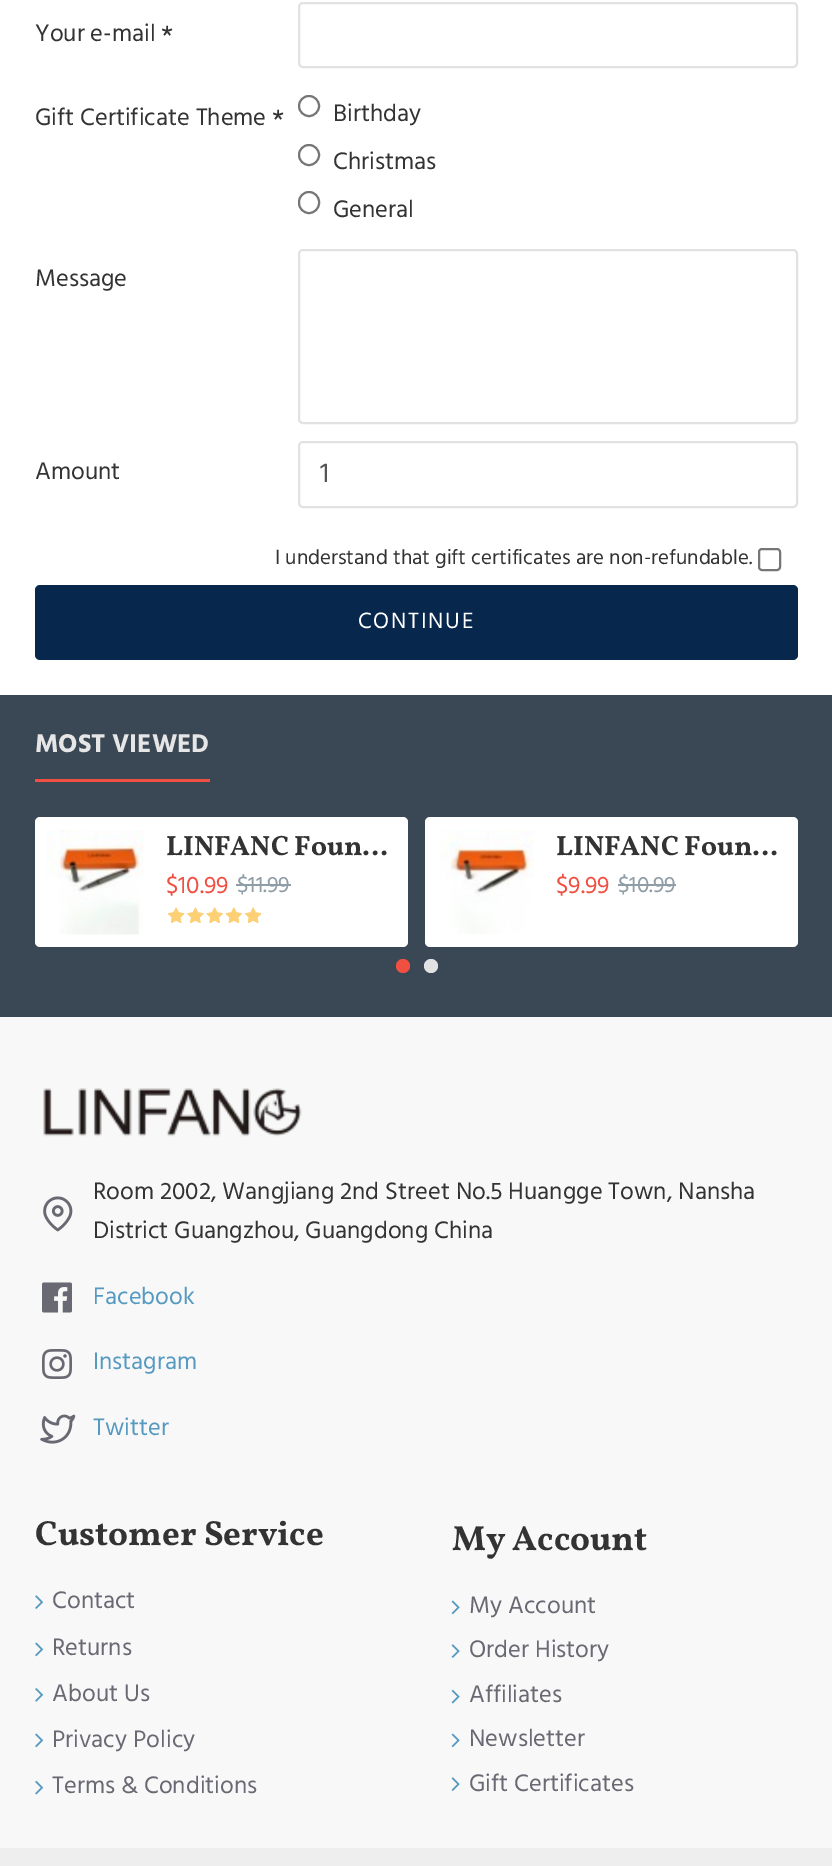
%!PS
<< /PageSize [832 1866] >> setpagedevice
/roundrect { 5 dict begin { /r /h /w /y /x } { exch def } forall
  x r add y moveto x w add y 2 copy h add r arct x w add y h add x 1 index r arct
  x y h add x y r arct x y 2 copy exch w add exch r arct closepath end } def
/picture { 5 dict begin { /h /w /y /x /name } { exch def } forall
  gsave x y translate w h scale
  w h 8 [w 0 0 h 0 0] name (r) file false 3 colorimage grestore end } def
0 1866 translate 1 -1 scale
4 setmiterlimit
1 setgray
0 0 832 1866 rectfill
/HindMadurai-Regular [24.5 0 0 -24.5 0 0] selectfont
0.2 setgray
35 41 moveto (Your e-mail) show
/HindMadurai-Regular [30 0 0 -30 0 0] selectfont
161 46 moveto (*) show
0.886 setgray
2 setlinewidth
299 3 498 64 4 roundrect stroke
/HindMadurai-Regular [24.5 0 0 -24.5 0 0] selectfont
0.2 setgray
35 125 moveto (Gift Certificate Theme) show
/HindMadurai-Regular [30 0 0 -30 0 0] selectfont
272 130 moveto (*) show
0.463 setgray
newpath 309 106 10 0 360 arc closepath stroke
/HindMadurai-Regular [24.5 0 0 -24.5 0 0] selectfont
0.2 setgray
333 121 moveto (Birthday) show
0.463 setgray
newpath 309 155 10 0 360 arc closepath stroke
0.2 setgray
333 169 moveto (Christmas) show
0.463 setgray
299 192 20 21 10 roundrect stroke
0.2 setgray
333 217 moveto (General) show
35 286 moveto (Message) show
0.886 setgray
299 250 498 173 4 roundrect stroke
0.2 setgray
35 479 moveto (Amount) show
0.886 setgray
299 442 498 65 4 roundrect stroke
/HindMadurai-Regular [28 0 0 -28 0 0] selectfont
0.333 setgray
320 482 moveto (1) show
/HindMadurai-Regular [21 0 0 -21 0 0] selectfont
0.2 setgray
275 564 moveto (I understand that gift certificates are non-refundable.) show
0.463 setgray
759 549 21 21 3 roundrect stroke
0.031 0.153 0.302 setrgbcolor
35 585 763 75 5 roundrect fill
/HindMadurai-Regular [22.75 0 0 -22.75 0 0] selectfont
1 setgray
358 628 moveto 1.75 0 (CONTINUE) ashow
0.973 setgray
0 1017 832 831 rectfill
0.227 0.278 0.329 setrgbcolor
0 695 832 322 rectfill
0.937 0.314 0.259 setrgbcolor
35 779 175 3 rectfill
/HindMadurai-Bold [26.25 0 0 -26.25 0 0] selectfont
0.902 setgray
35 752 moveto (MOST VIEWED) show
1 setgray
35 817 373 130 5 roundrect fill
(img1.rgb) 47 830 97 105 picture
/Vollkorn-Bold [28 0 0 -28 0 0] selectfont
0.2 setgray
166 855 moveto (LINFANC Foun…) show
/HindMadurai-Regular [24.5 0 0 -24.5 0 0] selectfont
0.937 0.314 0.259 setrgbcolor
166 893 moveto ($10.99) show
/HindMadurai-Regular [22.75 0 0 -22.75 0 0] selectfont
0.561 0.616 0.651 setrgbcolor
237 892 moveto ($11.99) show
236 884 55 2 rectfill
(img2.rgb) 168 907 17 16 picture
(img3.rgb) 168 907 17 16 picture
(img4.rgb) 187 907 17 16 picture
(img5.rgb) 187 907 17 16 picture
(img6.rgb) 206 907 17 16 picture
(img7.rgb) 206 907 17 16 picture
(img8.rgb) 225 907 17 16 picture
(img9.rgb) 225 907 17 16 picture
(img2.rgb) 245 907 17 16 picture
(img3.rgb) 245 907 17 16 picture
1 setgray
425 817 373 130 5 roundrect fill
(img10.rgb) 440 830 94 104 picture
/Vollkorn-Bold [28 0 0 -28 0 0] selectfont
0.2 setgray
556 855 moveto (LINFANC Foun…) show
/HindMadurai-Regular [24.5 0 0 -24.5 0 0] selectfont
0.937 0.314 0.259 setrgbcolor
556 893 moveto ($9.99) show
/HindMadurai-Regular [22.75 0 0 -22.75 0 0] selectfont
0.561 0.616 0.651 setrgbcolor
618 892 moveto ($10.99) show
618 884 58 2 rectfill
0.937 0.314 0.259 setrgbcolor
newpath 403 966 7 0 360 arc closepath fill
0.886 setgray
newpath 431 966 7 0 360 arc closepath fill
(img11.rgb) 43 1088 259 49 picture
(img12.rgb) 43 1196 30 36 picture
/HindMadurai-Regular [24.5 0 0 -24.5 0 0] selectfont
0.2 setgray
93 1199 moveto (Room 2002, Wangjiang 2nd Street No.5 Huangge Town, Nansha) show
93 1238 moveto (District Guangzhou, Guangdong China) show
(img13.rgb) 42 1282 30 31 picture
0.341 0.604 0.757 setrgbcolor
93 1304 moveto (Facebook) show
(img14.rgb) 42 1349 30 30 picture
93 1369 moveto (Instagram) show
(img15.rgb) 40 1414 36 30 picture
93 1435 moveto (Twitter) show
/Vollkorn-Bold [35 0 0 -35 0 0] selectfont
0.2 setgray
35 1545 moveto (Customer Service) show
(img16.rgb) 35 1595 9 14 picture
/HindMadurai-Regular [24.5 0 0 -24.5 0 0] selectfont
0.412 0.412 0.451 setrgbcolor
52 1608 moveto (Contact) show
(img17.rgb) 35 1642 9 15 picture
52 1655 moveto (Returns) show
(img18.rgb) 35 1688 9 14 picture
52 1701 moveto (About Us) show
(img17.rgb) 35 1733 9 15 picture
52 1747 moveto (Privacy Policy) show
(img19.rgb) 35 1780 9 15 picture
52 1793 moveto (Terms & Conditions) show
/Vollkorn-Bold [35 0 0 -35 0 0] selectfont
0.2 setgray
452 1550 moveto (My Account) show
(img20.rgb) 451 1600 9 15 picture
/HindMadurai-Regular [24.5 0 0 -24.5 0 0] selectfont
0.412 0.412 0.451 setrgbcolor
469 1613 moveto (My Account) show
(img21.rgb) 451 1644 9 14 picture
469 1657 moveto (Order History) show
(img22.rgb) 451 1689 9 15 picture
469 1702 moveto (Affiliates) show
(img20.rgb) 451 1733 9 15 picture
469 1746 moveto (Newsletter) show
(img21.rgb) 451 1777 9 14 picture
469 1791 moveto (Gift Certificates) show
0.933 setgray
0 1848 832 18 rectfill
showpage
